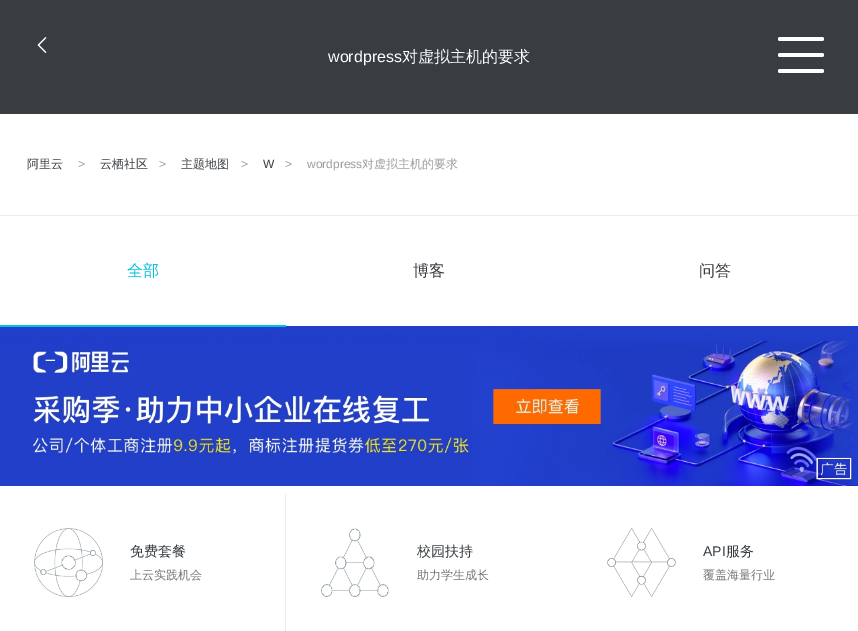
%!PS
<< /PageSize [858 631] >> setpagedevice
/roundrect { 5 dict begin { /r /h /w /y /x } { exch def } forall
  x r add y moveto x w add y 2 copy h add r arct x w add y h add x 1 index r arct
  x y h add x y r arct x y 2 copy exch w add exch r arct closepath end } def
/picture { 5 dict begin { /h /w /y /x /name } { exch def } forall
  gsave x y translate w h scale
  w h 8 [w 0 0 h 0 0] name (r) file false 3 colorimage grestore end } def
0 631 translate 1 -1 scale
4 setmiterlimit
1 setgray
0 0 858 631 rectfill
0.22 0.239 0.255 setrgbcolor
0 0 858 114 rectfill
(img1.rgb) 37 37 10 16 picture
/LiberationSans-Regular [16 0 0 -16 0 0] selectfont
1 setgray
328 62 moveto (wordpress) show
/WenQuanYiZenHei-Medium [16 0 0 -16 0 0] selectfont
402 62 moveto (对虚拟主机的要求) show
778 37 46 4 2 roundrect fill
778 53 46 4 2 roundrect fill
778 69 46 4 2 roundrect fill
/WenQuanYiZenHei-Medium [12 0 0 -12 0 0] selectfont
0.216 0.239 0.255 setrgbcolor
27 168 moveto (阿里云) show
/LiberationSans-Regular [12 0 0 -12 0 0] selectfont
0.608 0.62 0.627 setrgbcolor
78 168 moveto (>) show
/WenQuanYiZenHei-Medium [12 0 0 -12 0 0] selectfont
0.216 0.239 0.255 setrgbcolor
100 168 moveto (云栖社区) show
/LiberationSans-Regular [12 0 0 -12 0 0] selectfont
0.608 0.62 0.627 setrgbcolor
159 168 moveto (>) show
/WenQuanYiZenHei-Medium [12 0 0 -12 0 0] selectfont
0.216 0.239 0.255 setrgbcolor
181 168 moveto (主题地图) show
/LiberationSans-Regular [12 0 0 -12 0 0] selectfont
0.608 0.62 0.627 setrgbcolor
241 168 moveto (>) show
0.216 0.239 0.255 setrgbcolor
263 168 moveto (W) show
0.608 0.62 0.627 setrgbcolor
285 168 moveto (>) show
307 168 moveto (wordpress) show
/WenQuanYiZenHei-Medium [12 0 0 -12 0 0] selectfont
362 168 moveto (对虚拟主机的要求) show
0.922 0.925 0.925 setrgbcolor
0 215 858 1 0.5 roundrect fill
/WenQuanYiZenHei-Medium [16 0 0 -16 0 0] selectfont
0 0.757 0.871 setrgbcolor
127 276 moveto (全部) show
0.216 0.239 0.255 setrgbcolor
413 276 moveto (博客) show
699 276 moveto (问答) show
(img2.rgb) 0 326 858 160 picture
0 0.757 0.871 setrgbcolor
0 325 286 2 rectfill
(img3.rgb) 34 528 69 69 picture
/WenQuanYiZenHei-Medium [14 0 0 -14 0 0] selectfont
0.216 0.239 0.255 setrgbcolor
130 556 moveto (免费套餐) show
/WenQuanYiZenHei-Medium [12 0 0 -12 0 0] selectfont
0.451 0.467 0.478 setrgbcolor
130 579 moveto (上云实践机会) show
0.922 0.925 0.925 setrgbcolor
285 494 1 137 0.5 roundrect fill
(img4.rgb) 321 528 68 69 picture
/WenQuanYiZenHei-Medium [14 0 0 -14 0 0] selectfont
0.216 0.239 0.255 setrgbcolor
417 556 moveto (校园扶持) show
/WenQuanYiZenHei-Medium [12 0 0 -12 0 0] selectfont
0.451 0.467 0.478 setrgbcolor
417 579 moveto (助力学生成长) show
(img5.rgb) 607 528 69 69 picture
/LiberationSans-Regular [14 0 0 -14 0 0] selectfont
0.216 0.239 0.255 setrgbcolor
703 556 moveto (API) show
/WenQuanYiZenHei-Medium [14 0 0 -14 0 0] selectfont
726 556 moveto (服务) show
/WenQuanYiZenHei-Medium [12 0 0 -12 0 0] selectfont
0.451 0.467 0.478 setrgbcolor
703 579 moveto (覆盖海量行业) show
showpage
